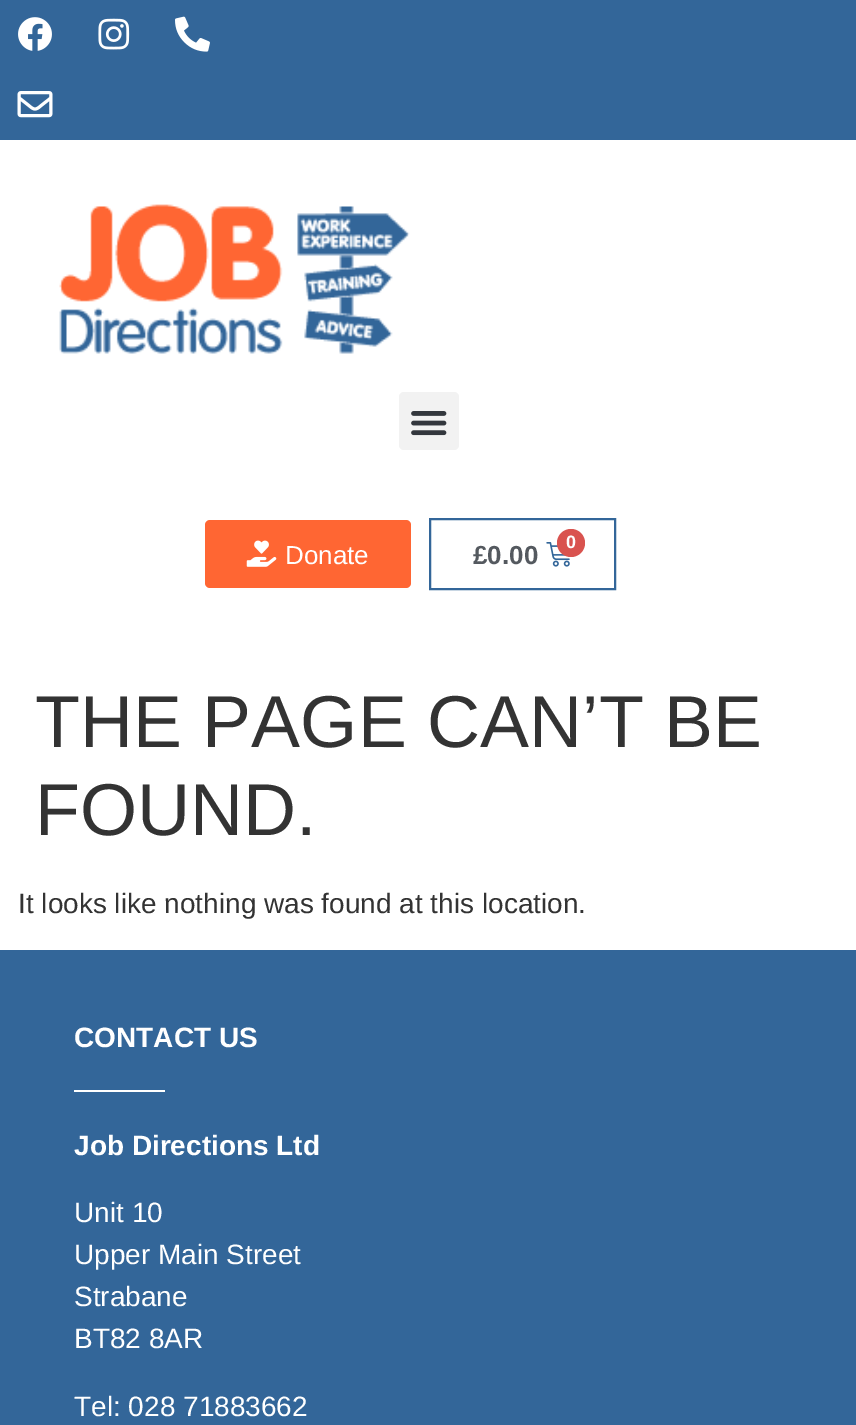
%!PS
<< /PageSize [856 1425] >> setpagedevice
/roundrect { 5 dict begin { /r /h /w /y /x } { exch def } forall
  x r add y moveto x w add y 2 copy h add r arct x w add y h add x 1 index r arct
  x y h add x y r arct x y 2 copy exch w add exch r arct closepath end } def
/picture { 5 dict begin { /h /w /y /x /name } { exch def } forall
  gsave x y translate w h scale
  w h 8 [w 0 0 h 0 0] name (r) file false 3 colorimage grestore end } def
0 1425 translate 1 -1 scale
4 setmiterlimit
1 setgray
0 0 856 1425 rectfill
0.2 0.4 0.6 setrgbcolor
0 0 856 140 rectfill
(img1.rgb) 18 17 34 34 picture
(img2.rgb) 98 18 32 32 picture
(img3.rgb) 175 16 35 36 picture
(img4.rgb) 17 91 36 27 picture
(img5.rgb) 59 204 351 150 picture
0.949 setgray
399 392 60 58 5 roundrect fill
(img6.rgb) 411 411 36 25 picture
1 0.4 0.2 setrgbcolor
205 520 206 68 5 roundrect fill
(img7.rgb) 246 540 31 27 picture
/LiberationSans-Regular [26 0 0 -26 0 0] selectfont
1 setgray
285 564 moveto (Donate) show
0.2 0.4 0.6 setrgbcolor
2 setlinewidth
430 519 185 70 rectstroke
(img8.rgb) 546 542 24 25 picture
0.851 0.325 0.31 setrgbcolor
newpath 571 543 14 0 360 arc closepath fill
/LiberationSans-Bold [18 0 0 -18 0 0] selectfont
1 setgray
566 548 moveto (0) show
/LiberationSans-Bold [26 0 0 -26 0 0] selectfont
0.329 0.349 0.373 setrgbcolor
473 564 moveto (£0.00) show
/LiberationSans-Regular [73.5 0 0 -73.5 0 0] selectfont
0.2 setgray
35 747 moveto (THE PAGE CAN’T BE) show
35 835 moveto (FOUND.) show
/LiberationSans-Regular [28 0 0 -28 0 0] selectfont
18 913 moveto (It looks like nothing was found at this location.) show
0.2 0.4 0.6 setrgbcolor
0 950 856 475 rectfill
/LiberationSans-Bold [28 0 0 -28 0 0] selectfont
1 setgray
74 1047 moveto (CONTACT US) show
74 1090 91 2 rectfill
74 1155 moveto (Job Directions Ltd) show
/LiberationSans-Regular [28 0 0 -28 0 0] selectfont
74 1222 moveto (Unit 10) show
74 1264 moveto (Upper Main Street) show
74 1306 moveto (Strabane) show
74 1348 moveto (BT82 8AR) show
74 1416 moveto (Tel: 028 71883662) show
showpage
